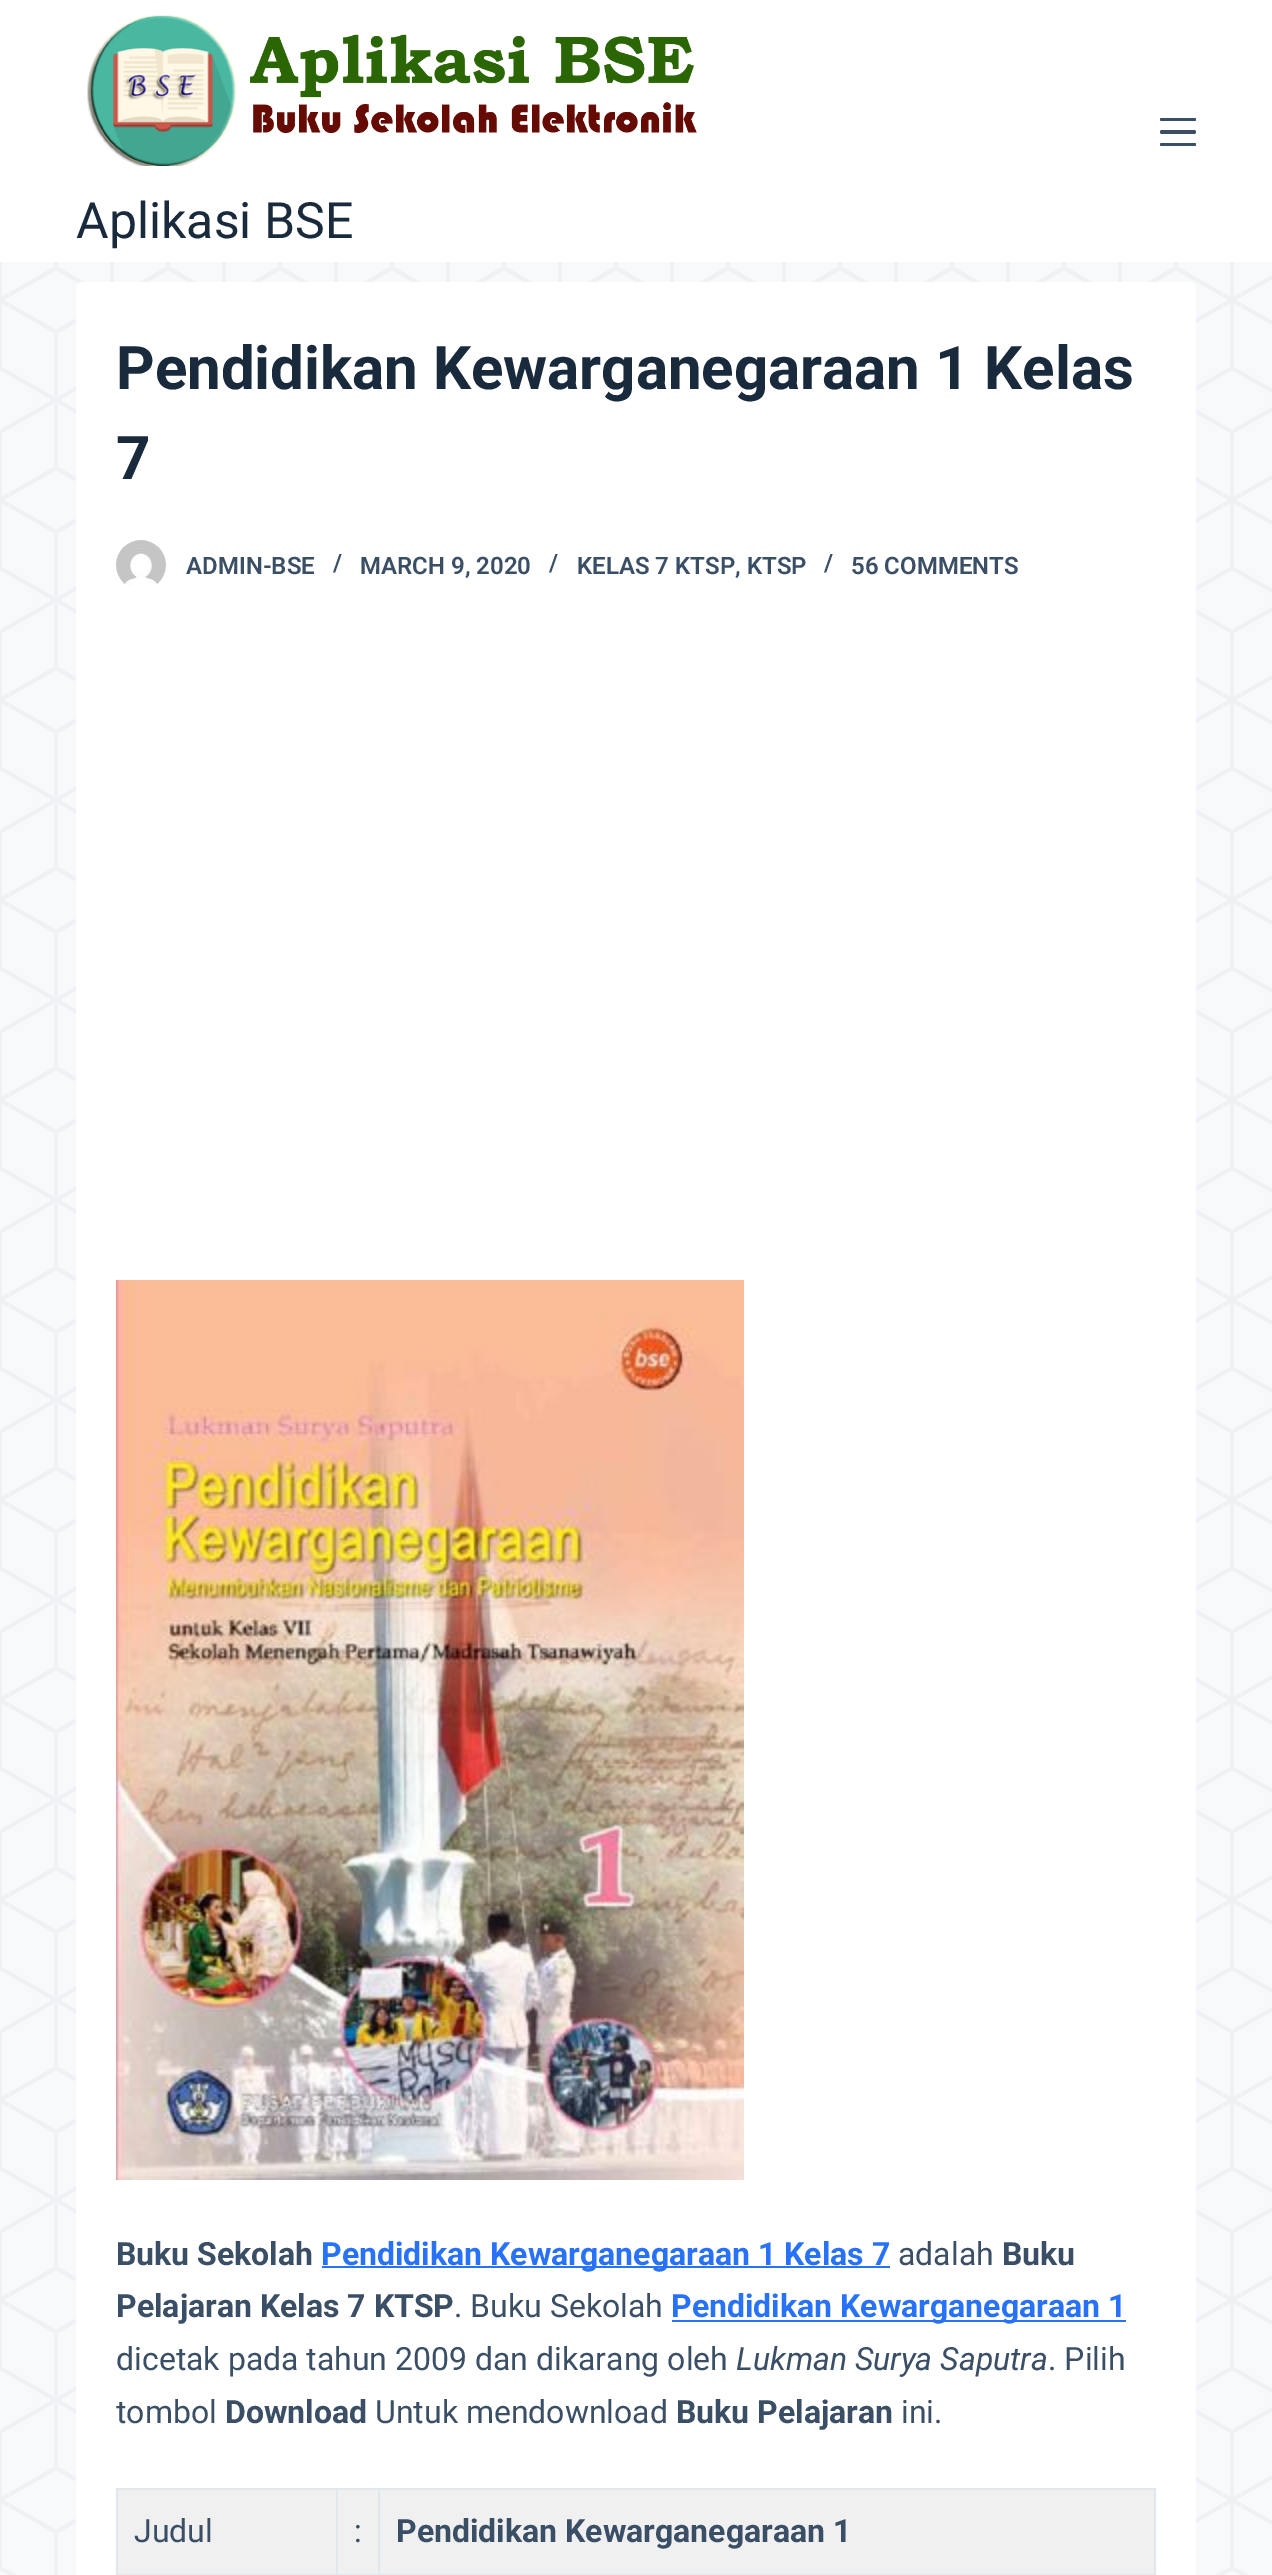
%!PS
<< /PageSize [1272 2575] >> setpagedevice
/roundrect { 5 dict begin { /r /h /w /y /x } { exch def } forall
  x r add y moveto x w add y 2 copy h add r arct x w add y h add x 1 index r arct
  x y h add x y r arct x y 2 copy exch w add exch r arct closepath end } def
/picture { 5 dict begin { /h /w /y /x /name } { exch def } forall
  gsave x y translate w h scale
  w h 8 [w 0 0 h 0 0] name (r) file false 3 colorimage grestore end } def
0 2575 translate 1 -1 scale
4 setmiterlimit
0.973 0.976 0.984 setrgbcolor
0 0 1272 2575 rectfill
(img1.rgb) 0 262 1272 2313 picture
1 setgray
0 0 1272 262 rectfill
0.227 0.31 0.4 setrgbcolor
1160 118 36 3 1.5 roundrect fill
1160 130 36 4 2 roundrect fill
1160 143 36 3 1.5 roundrect fill
(img2.rgb) 87 15 610 151 picture
/Roboto-Regular [50 0 0 -50 0 0] selectfont
0.098 0.165 0.239 setrgbcolor
76 238 moveto (Aplikasi BSE) show
1 setgray
76 282 1120 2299 6 roundrect fill
/Roboto-Bold [60 0 0 -60 0 0] selectfont
0.098 0.165 0.239 setrgbcolor
116 389 moveto (Pendidikan Kewarganegaraan 1 Kelas) show
116 479 moveto (7) show
(img3.rgb) 116 540 50 47 picture
/Roboto-SemiBold [24 0 0 -24 0 0] selectfont
0.227 0.31 0.4 setrgbcolor
186 574 moveto (ADMIN-BSE) show
333 571 moveto (/) show
360 574 moveto (MARCH 9, 2020) show
549 571 moveto (/) show
577 574 moveto (KELAS 7 KTSP, KTSP) show
824 571 moveto (/) show
851 574 moveto (56 COMMENTS) show
(img4.rgb) 116 1280 628 900 picture
/Roboto-Bold [32 0 0 -32 0 0] selectfont
116 2265 moveto (Buku Sekolah) show
0.157 0.447 0.98 setrgbcolor
322 2266 568 2 rectfill
321 2265 moveto (Pendidikan Kewarganegaraan 1 Kelas 7) show
/Roboto-Regular [32 0 0 -32 0 0] selectfont
0.227 0.31 0.4 setrgbcolor
898 2265 moveto (adalah) show
/Roboto-Bold [32 0 0 -32 0 0] selectfont
1002 2265 moveto (Buku) show
116 2317 moveto (Pelajaran Kelas 7 KTSP) show
/Roboto-Regular [32 0 0 -32 0 0] selectfont
454 2317 moveto (. Buku Sekolah) show
0.157 0.447 0.98 setrgbcolor
672 2320 454 2 rectfill
/Roboto-Bold [32 0 0 -32 0 0] selectfont
671 2317 moveto (Pendidikan Kewarganegaraan 1) show
/Roboto-Regular [32 0 0 -32 0 0] selectfont
0.227 0.31 0.4 setrgbcolor
116 2370 moveto (dicetak pada tahun 2009 dan dikarang oleh) show
/Roboto-Italic [32 0 0 -32 0 0] selectfont
736 2370 moveto (Lukman Surya Saputra) show
/Roboto-Regular [32 0 0 -32 0 0] selectfont
1048 2370 moveto (. Pilih) show
116 2423 moveto (tombol) show
/Roboto-Bold [32 0 0 -32 0 0] selectfont
225 2423 moveto (Download) show
/Roboto-Regular [32 0 0 -32 0 0] selectfont
375 2423 moveto (Untuk mendownload) show
/Roboto-Bold [32 0 0 -32 0 0] selectfont
676 2423 moveto (Buku Pelajaran) show
/Roboto-Regular [32 0 0 -32 0 0] selectfont
901 2423 moveto (ini.) show
0.882 0.91 0.929 setrgbcolor
116 2488 1040 2 rectfill
1154 2488 2 87 rectfill
116 2488 2 87 rectfill
0.941 setgray
118 2490 1036 84 rectfill
0.227 0.31 0.4 setrgbcolor
134 2542 moveto (Judul) show
0.882 0.91 0.929 setrgbcolor
116 2574 1040 1 rectfill
336 2488 2 87 rectfill
0.227 0.31 0.4 setrgbcolor
354 2542 moveto (:) show
0.882 0.91 0.929 setrgbcolor
378 2488 2 87 rectfill
/Roboto-Bold [32 0 0 -32 0 0] selectfont
0.227 0.31 0.4 setrgbcolor
396 2542 moveto (Pendidikan Kewarganegaraan 1) show
showpage
